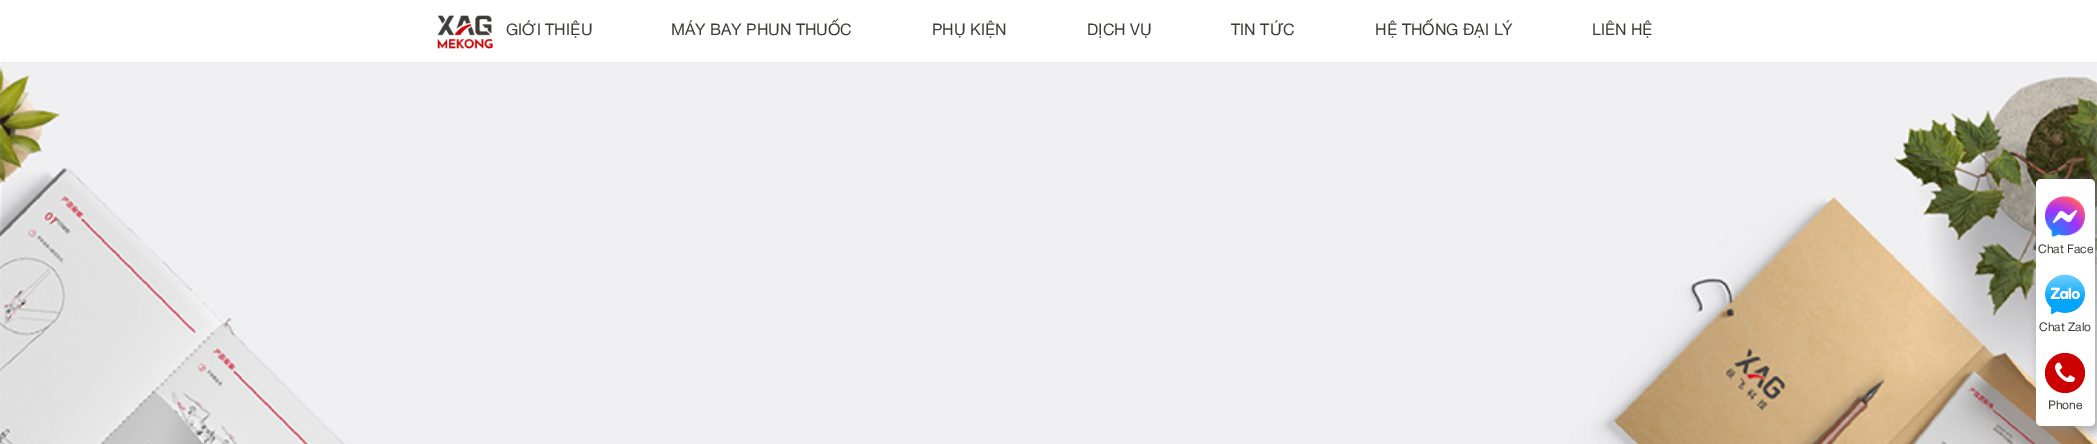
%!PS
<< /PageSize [2097 444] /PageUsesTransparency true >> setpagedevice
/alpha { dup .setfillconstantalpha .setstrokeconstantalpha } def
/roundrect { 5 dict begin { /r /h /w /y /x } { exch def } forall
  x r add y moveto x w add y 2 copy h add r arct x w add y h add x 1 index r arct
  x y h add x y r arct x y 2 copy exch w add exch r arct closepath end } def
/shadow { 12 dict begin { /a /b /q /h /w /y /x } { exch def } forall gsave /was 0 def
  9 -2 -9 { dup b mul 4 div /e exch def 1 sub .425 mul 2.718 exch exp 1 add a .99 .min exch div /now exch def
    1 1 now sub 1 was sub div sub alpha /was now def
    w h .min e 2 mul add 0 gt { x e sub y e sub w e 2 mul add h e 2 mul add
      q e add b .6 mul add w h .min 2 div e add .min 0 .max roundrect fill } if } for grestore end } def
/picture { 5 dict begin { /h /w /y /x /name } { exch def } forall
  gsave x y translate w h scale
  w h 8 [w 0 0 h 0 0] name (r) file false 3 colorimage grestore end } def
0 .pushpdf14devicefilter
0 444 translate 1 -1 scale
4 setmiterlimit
1 setgray
0 0 2097 444 rectfill
0.922 setgray
0 62 2097 1 rectfill
(img1.rgb) 437 15 56 34 picture
/HelveticaNeue-Regular [16 0 0 -16 0 0] selectfont
0.239 0.235 0.22 setrgbcolor
506 35 moveto (GIỚI THIỆU) show
671 35 moveto (MÁY BAY PHUN THUỐC) show
932 35 moveto (PHỤ KIỆN) show
1087 35 moveto (DỊCH VỤ) show
1231 35 moveto (TIN TỨC) show
1375 35 moveto (HỆ THỐNG ĐẠI LÝ) show
1592 35 moveto (LIÊN HỆ) show
(img2.rgb) 0 63 2097 381 picture
0.529 setgray
2038 181 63 251 7 5 0.6 shadow
1 setgray
2036 179 59 247 5 roundrect fill
(img3.rgb) 2045 196 40 41 picture
/HelveticaNeue-Regular [12 0 0 -12 0 0] selectfont
0.239 0.235 0.22 setrgbcolor
2038 253 moveto (Chat Face) show
(img4.rgb) 2045 274 40 41 picture
2039 331 moveto (Chat Zalo) show
0.8 0 0 setrgbcolor
newpath 2065 373 20 0 360 arc closepath fill
(img5.rgb) 2055 362 20 20 picture
0.239 0.235 0.22 setrgbcolor
2048 409 moveto (Phone) show
.poppdf14devicefilter showpage
